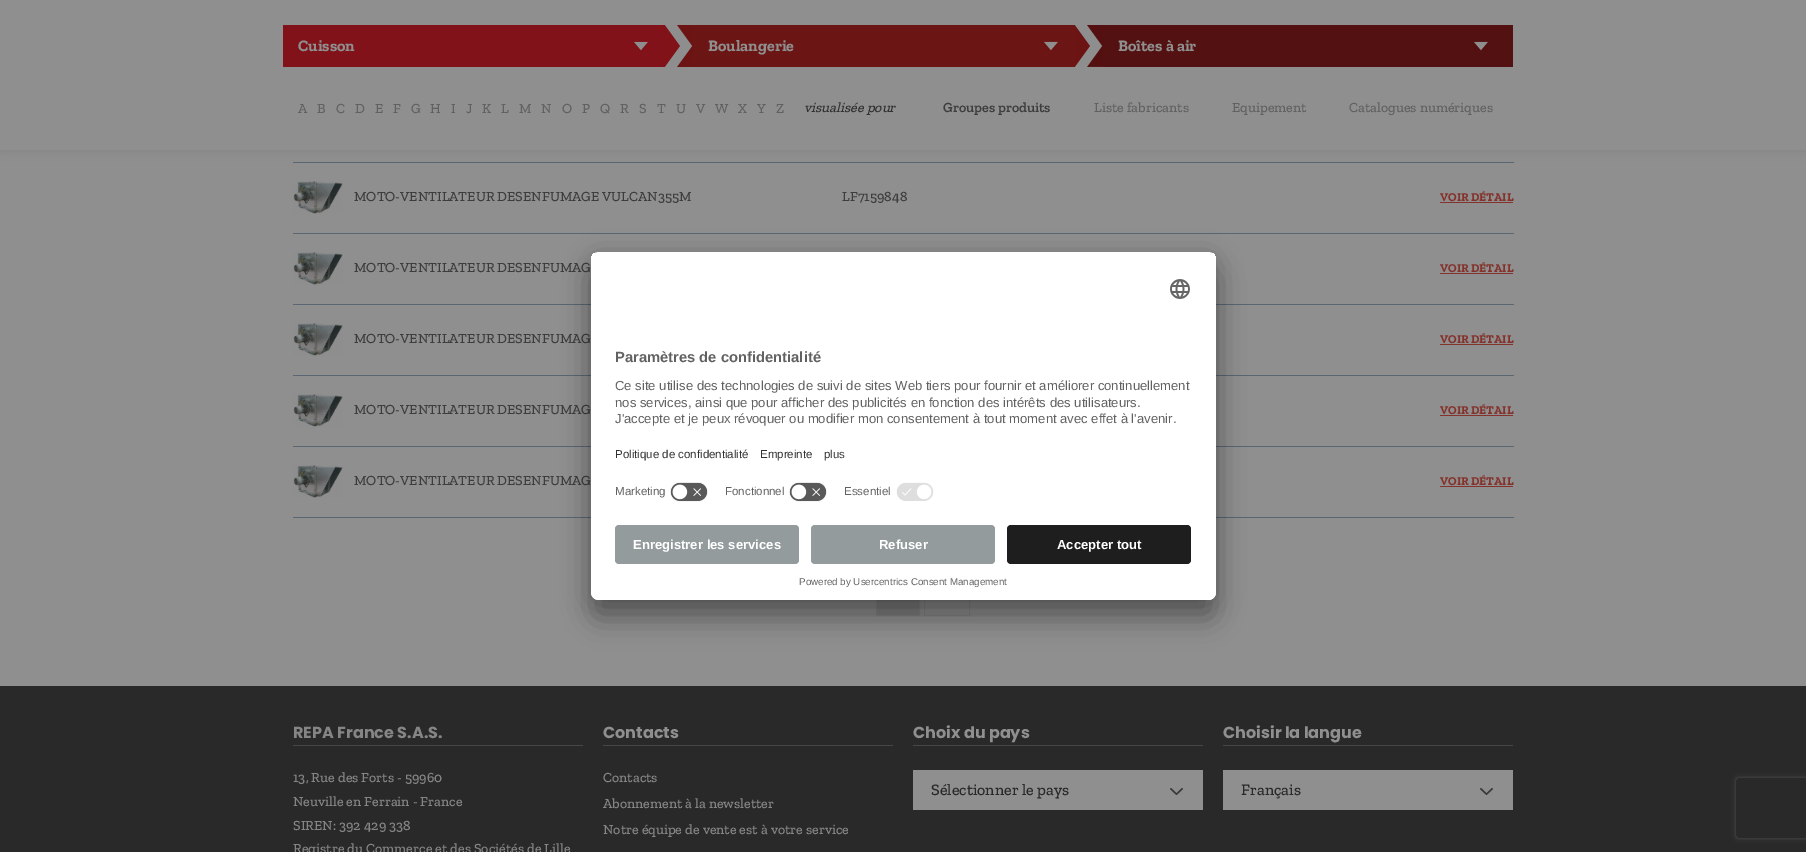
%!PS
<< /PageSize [1806 852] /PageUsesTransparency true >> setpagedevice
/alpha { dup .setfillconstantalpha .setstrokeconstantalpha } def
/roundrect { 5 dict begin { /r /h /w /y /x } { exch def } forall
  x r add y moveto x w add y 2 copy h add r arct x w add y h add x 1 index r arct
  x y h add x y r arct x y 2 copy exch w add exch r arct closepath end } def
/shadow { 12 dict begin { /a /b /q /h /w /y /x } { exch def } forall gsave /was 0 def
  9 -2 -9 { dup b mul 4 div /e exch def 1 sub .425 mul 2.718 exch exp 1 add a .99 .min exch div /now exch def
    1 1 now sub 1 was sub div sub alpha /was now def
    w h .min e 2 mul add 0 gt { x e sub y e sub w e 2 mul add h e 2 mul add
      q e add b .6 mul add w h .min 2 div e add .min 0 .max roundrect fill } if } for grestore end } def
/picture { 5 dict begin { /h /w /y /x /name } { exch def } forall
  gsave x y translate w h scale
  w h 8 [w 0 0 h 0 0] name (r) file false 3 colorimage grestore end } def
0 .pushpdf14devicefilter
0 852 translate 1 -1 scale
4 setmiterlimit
0.561 setgray
0 0 1806 852 rectfill
0.353 0.404 0.451 setrgbcolor
293 162 1221 1 rectfill
0.059 setgray
1 1 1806 150 0 5 0.1 shadow
0.561 setgray
0 0 1806 150 rectfill
0.506 0.071 0.098 setrgbcolor
283 25 382 42 rectfill
(img1.rgb) 634 41 14 10 picture
/ZillaSlab-Bold [16 0 0 -16 0 0] selectfont
0.561 setgray
298 51 moveto (Cuisson) show
(img2.rgb) 665 25 12 42 picture
0.424 0.082 0.082 setrgbcolor
693 25 382 42 rectfill
(img3.rgb) 1044 41 14 10 picture
(img4.rgb) 677 25 16 42 picture
0.561 setgray
708 51 moveto (Boulangerie) show
(img5.rgb) 1075 25 12 42 picture
0.329 0.067 0.067 setrgbcolor
1103 25 410 42 rectfill
(img6.rgb) 1474 41 14 10 picture
(img7.rgb) 1087 25 16 42 picture
0.561 setgray
1118 51 moveto (Boîtes à air) show
/ZillaSlab-Medium [14 0 0 -14 0 0] selectfont
0.38 setgray
298 113 moveto (A) show
317 113 moveto (B) show
336 113 moveto (C) show
355 113 moveto (D) show
375 113 moveto (E) show
393 113 moveto (F) show
411 113 moveto (G) show
430 113 moveto (H) show
451 113 moveto (I) show
466 113 moveto (J) show
482 113 moveto (K) show
501 113 moveto (L) show
519 113 moveto (M) show
541 113 moveto (N) show
562 113 moveto (O) show
582 113 moveto (P) show
600 113 moveto (Q) show
620 113 moveto (R) show
639 113 moveto (S) show
657 113 moveto (T) show
676 113 moveto (U) show
696 113 moveto (V) show
715 113 moveto (W) show
738 113 moveto (X) show
757 113 moveto (Y) show
776 113 moveto (Z) show
/ZillaSlab-MediumItalic [14 0 0 -14 0 0] selectfont
0.192 setgray
804 112 moveto (visualisée pour) show
/ZillaSlab-SemiBold [14 0 0 -14 0 0] selectfont
0.239 setgray
943 112 moveto (Groupes produits) show
/ZillaSlab-Medium [14 0 0 -14 0 0] selectfont
0.38 setgray
1094 112 moveto (Liste fabricants) show
1232 112 moveto (Equipement) show
1349 112 moveto (Catalogues numériques) show
(img8.rgb) 293 181 50 33 picture
0.239 setgray
354 201 moveto (MOTO-VENTILATEUR DESENFUMAGE VULCAN355M) show
842 201 moveto (LF7159848) show
0.353 0.404 0.451 setrgbcolor
293 233 1221 1 rectfill
/ZillaSlab-Bold [12 0 0 -12 0 0] selectfont
0.518 0.196 0.173 setrgbcolor
1440 201 moveto (VOIR DÉTAIL) show
1440 202 73 1 rectfill
(img8.rgb) 293 252 50 33 picture
0.353 0.404 0.451 setrgbcolor
293 304 298 1 rectfill
/ZillaSlab-Medium [14 0 0 -14 0 0] selectfont
0.239 setgray
354 272 moveto (MOTO-VENTILATEUR DESENFUMAG) show
0.353 0.404 0.451 setrgbcolor
1216 304 298 1 rectfill
/ZillaSlab-Bold [12 0 0 -12 0 0] selectfont
0.518 0.196 0.173 setrgbcolor
1440 272 moveto (VOIR DÉTAIL) show
1440 273 73 1 rectfill
(img8.rgb) 293 323 50 33 picture
0.353 0.404 0.451 setrgbcolor
293 375 298 1 rectfill
/ZillaSlab-Medium [14 0 0 -14 0 0] selectfont
0.239 setgray
354 343 moveto (MOTO-VENTILATEUR DESENFUMAG) show
0.353 0.404 0.451 setrgbcolor
1216 375 298 1 rectfill
/ZillaSlab-Bold [12 0 0 -12 0 0] selectfont
0.518 0.196 0.173 setrgbcolor
1440 343 moveto (VOIR DÉTAIL) show
1440 344 73 1 rectfill
(img8.rgb) 293 394 50 33 picture
0.353 0.404 0.451 setrgbcolor
293 446 298 1 rectfill
/ZillaSlab-Medium [14 0 0 -14 0 0] selectfont
0.239 setgray
354 414 moveto (MOTO-VENTILATEUR DESENFUMAG) show
0.353 0.404 0.451 setrgbcolor
1216 446 298 1 rectfill
/ZillaSlab-Bold [12 0 0 -12 0 0] selectfont
0.518 0.196 0.173 setrgbcolor
1440 414 moveto (VOIR DÉTAIL) show
1440 415 73 1 rectfill
(img8.rgb) 293 465 50 33 picture
0.353 0.404 0.451 setrgbcolor
293 517 298 1 rectfill
/ZillaSlab-Medium [14 0 0 -14 0 0] selectfont
0.239 setgray
354 485 moveto (MOTO-VENTILATEUR DESENFUMAG) show
0.353 0.404 0.451 setrgbcolor
1216 517 298 1 rectfill
/ZillaSlab-Bold [12 0 0 -12 0 0] selectfont
0.518 0.196 0.173 setrgbcolor
1440 485 moveto (VOIR DÉTAIL) show
1440 486 73 1 rectfill
0.522 0.525 0.529 setrgbcolor
876.5 568.5 43 47 rectstroke
0.514 setgray
877 600 42 15 rectfill
0.522 0.525 0.529 setrgbcolor
924.5 568.5 45 47 rectstroke
0.161 setgray
0 686 1806 166 rectfill
0.278 setgray
293 745 290 1 rectfill
/Poppins-Bold [16 0 0 -16 0 0] selectfont
0.522 setgray
293 738 moveto (REPA France S.A.S.) show
/ZillaSlab-Medium [14 0 0 -14 0 0] selectfont
293 782 moveto (13, Rue des Forts - 59960) show
293 806 moveto (Neuville en Ferrain - France) show
293 830 moveto (SIREN: 392 429 338) show
293 853 moveto (Registre du Commerce et des Sociétés de Lille) show
0.278 setgray
603 745 290 1 rectfill
/Poppins-Bold [16 0 0 -16 0 0] selectfont
0.561 setgray
603 738 moveto (Contacts) show
/ZillaSlab-Medium [14 0 0 -14 0 0] selectfont
0.522 setgray
603 782 moveto (Contacts) show
603 808 moveto (Abonnement à la newsletter) show
603 834 moveto (Notre équipe de vente est à votre service) show
0.278 setgray
913 745 290 1 rectfill
/Poppins-Bold [16 0 0 -16 0 0] selectfont
0.561 setgray
913 738 moveto (Choix du pays) show
913 770 290 40 rectfill
/ZillaSlab-Medium [16 0 0 -16 0 0] selectfont
0.161 setgray
931 795 moveto (Sélectionner le pays) show
(img9.rgb) 1170 788 13 7 picture
0.278 setgray
1223 745 290 1 rectfill
/Poppins-Bold [16 0 0 -16 0 0] selectfont
0.561 setgray
1223 738 moveto (Choisir la langue) show
1223 770 290 40 rectfill
/ZillaSlab-Medium [16 0 0 -16 0 0] selectfont
0.161 setgray
1241 795 moveto (Français) show
(img9.rgb) 1480 788 13 7 picture
0 setgray
591 272 625 348 8 14 0.3 shadow
591 257 625 348 8 13 0.22 shadow
1 setgray
591 252 625 348 8 roundrect fill
gsave
591 252 625 348 8 roundrect clip newpath
newpath 599 252 moveto 1208 252 lineto 1212.5 252 1216 255.5 1216 260 curveto 1216 517 lineto 591 517 lineto 591 260 lineto 591 255.5 594.5 252 599 252 curveto closepath clip newpath
591 253 625 264 rectfill
591 253 625 224 rectfill
grestore
(img10.rgb) 1170 279 20 20 picture
/LiberationSans-Bold [14.75 0 0 -14.75 0 0] selectfont
0.38 setgray
615 362 moveto (Paramètres de confidentialité) show
/LiberationSans-Regular [13.1 0 0 -13.1 0 0] selectfont
615 390 moveto (Ce site utilise des technologies de suivi de sites Web tiers pour fournir et améliorer continuellement) show
615 407 moveto (nos services, ainsi que pour afficher des publicités en fonction des intérêts des utilisateurs.) show
615 423 moveto (J'accepte et je peux révoquer ou modifier mon consentement à tout moment avec effet à l'avenir.) show
/LiberationSans-Regular [11.5 0 0 -11.5 0 0] selectfont
0.192 setgray
615 458 moveto (Politique de confidentialité) show
760 458 moveto (Empreinte) show
824 458 moveto (plus) show
0.38 setgray
615 495 moveto (Marketing) show
(img11.rgb) 670 482 38 20 picture
725 495 moveto (Fonctionnel) show
(img11.rgb) 789 482 38 20 picture
844 495 moveto (Essentiel) show
(img12.rgb) 896 482 38 19 picture
1 setgray
newpath 591 517 moveto 1216 517 lineto 1216 592 lineto 1216 596.5 1212.5 600 1208 600 curveto 599 600 lineto 594.5 600 591 596.5 591 592 curveto closepath fill
0.58 0.608 0.612 setrgbcolor
615 525 184 39 4 roundrect fill
/LiberationSans-Bold [13.1 0 0 -13.1 0 0] selectfont
1 setgray
633 549 moveto (Enregistrer les services) show
0.58 0.608 0.612 setrgbcolor
811 525 184 39 4 roundrect fill
1 setgray
879 549 moveto (Refuser) show
0.118 setgray
1007 525 184 39 4 roundrect fill
1 setgray
1057 549 moveto (Accepter tout) show
/LiberationSans-Regular [9.8 0 0 -9.8 0 0] selectfont
0.38 setgray
799 585 moveto (Powered by Usercentrics Consent Management) show
gsave
newpath 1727 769 moveto 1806 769 lineto 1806 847 lineto 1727 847 lineto closepath 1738 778 moveto 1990 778 lineto 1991 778 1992 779 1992 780 curveto 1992 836 lineto 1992 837 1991 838 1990 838 curveto 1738 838 lineto 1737 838 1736 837 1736 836 curveto 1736 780 lineto 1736 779 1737 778 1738 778 curveto closepath eoclip newpath
0.31 setgray
1736 778 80 60 2 2.5 1 shadow
grestore
.poppdf14devicefilter showpage
